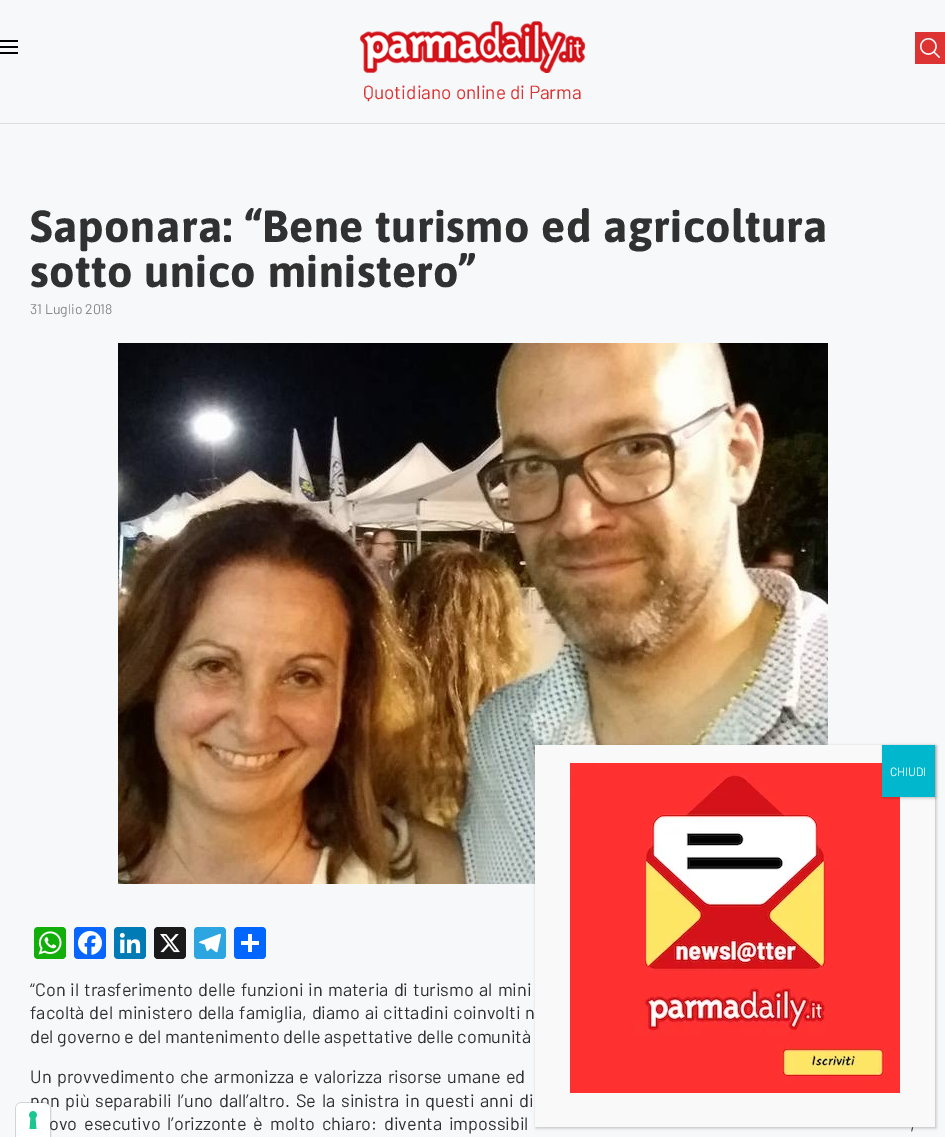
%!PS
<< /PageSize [945 1137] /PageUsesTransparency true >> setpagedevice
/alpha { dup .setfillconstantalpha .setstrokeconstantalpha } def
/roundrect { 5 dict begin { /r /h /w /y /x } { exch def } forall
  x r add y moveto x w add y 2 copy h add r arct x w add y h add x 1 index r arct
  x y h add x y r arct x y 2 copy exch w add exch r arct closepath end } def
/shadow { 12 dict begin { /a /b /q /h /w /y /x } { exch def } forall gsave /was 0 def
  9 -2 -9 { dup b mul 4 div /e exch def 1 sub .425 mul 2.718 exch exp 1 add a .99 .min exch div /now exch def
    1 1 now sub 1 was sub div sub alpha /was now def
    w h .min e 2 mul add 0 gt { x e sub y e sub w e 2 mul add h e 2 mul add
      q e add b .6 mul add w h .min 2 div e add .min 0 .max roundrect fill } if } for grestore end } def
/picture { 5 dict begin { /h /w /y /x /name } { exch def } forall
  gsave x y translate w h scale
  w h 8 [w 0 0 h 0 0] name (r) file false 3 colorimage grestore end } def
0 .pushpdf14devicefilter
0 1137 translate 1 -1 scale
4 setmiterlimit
0.965 0.973 0.98 setrgbcolor
0 0 945 1137 rectfill
0 setgray
0 40 18 2 rectfill
0 46 18 2 rectfill
0 52 18 2 rectfill
(img1.rgb) 360 21 225 52 picture
0.867 0.2 0.2 setrgbcolor
915 32 30 32 rectfill
(img2.rgb) 920 38 20 20 picture
0.871 setgray
0 123 945 1 rectfill
/Barlow-Regular [19 0 0 -19 0 0] selectfont
0.867 0.2 0.2 setrgbcolor
363 99 moveto (Quotidiano online di Parma) show
/Asap-Bold [45 0 0 -45 0 0] selectfont
0.192 setgray
30 242 moveto 0.5 0 (Saponara: “Bene turismo ed agricoltura) ashow
30 287 moveto 0.5 0 (sotto unico ministero”) ashow
/Barlow-Regular [14 0 0 -14 0 0] selectfont
0.533 setgray
30 314 moveto (31 Luglio 2018) show
(img3.rgb) 118 343 710 541 picture
0.071 0.686 0.039 setrgbcolor
34 927 32 32 4 roundrect fill
(img4.rgb) 38 931 24 24 picture
0.031 0.4 1 setrgbcolor
74 927 32 32 4 roundrect fill
(img5.rgb) 78 931 24 24 picture
0 0.482 0.71 setrgbcolor
114 927 32 32 4 roundrect fill
(img6.rgb) 119 932 22 22 picture
0.102 setgray
154 927 32 32 4 roundrect fill
(img7.rgb) 160 934 20 19 picture
0.173 0.647 0.878 setrgbcolor
194 927 32 32 4 roundrect fill
(img8.rgb) 199 933 22 20 picture
0.004 0.4 1 setrgbcolor
234 927 32 32 4 roundrect fill
1 setgray
248 934 4 18 rectfill
241 941 18 4 rectfill
/Barlow-Regular [18 0 0 -18 0 0] selectfont
0.192 setgray
30 996 moveto 1.6 0 32 (“Con il trasferimento delle funzioni in materia di turismo al mini) widthshow
30 1019 moveto 1.25 0 32 (facoltà del ministero della famiglia, diamo ai cittadini coinvolti n) widthshow
30 1043 moveto (del governo e del mantenimento delle aspettative delle comunità) show
30 1083 moveto 1.75 0 32 (Un provvedimento che armonizza e valorizza risorse umane ed) widthshow
30 1107 moveto 2.25 0 32 (non più separabili l’uno dall’altro. Se la sinistra in questi anni di) widthshow
49 1130 moveto 3.25 0 32 (ovo esecutivo l’orizzonte è molto chiaro: diventa impossibil) widthshow
910 1130 moveto 3.25 0 32 (,) widthshow
0.008 setgray
536 746 400 382 0 1.5 0.23 shadow
0.976 setgray
535 745 400 382 rectfill
(img9.rgb) 570 763 330 330 picture
0.008 setgray
883 746 53 52 0 1.5 0.23 shadow
0 0.718 0.804 setrgbcolor
882 745 53 52 rectfill
/Barlow-Regular [12 0 0 -12 0 0] selectfont
1 setgray
890 776 moveto (CHIUDI) show
0.15 alpha
0 setgray
newpath 22 1102.5 moveto 44 1102.5 lineto 47.5 1102.5 50.5 1105.5 50.5 1109 curveto 50.5 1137.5 lineto 15.5 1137.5 lineto 15.5 1109 lineto 15.5 1105.5 18.5 1102.5 22 1102.5 curveto closepath stroke
1 alpha
1 setgray
newpath 22 1103 moveto 44 1103 lineto 47.5 1103 50 1105.5 50 1109 curveto 50 1137 lineto 16 1137 lineto 16 1109 lineto 16 1105.5 18.5 1103 22 1103 curveto closepath fill
(img10.rgb) 29 1111 8 18 picture
.poppdf14devicefilter showpage
